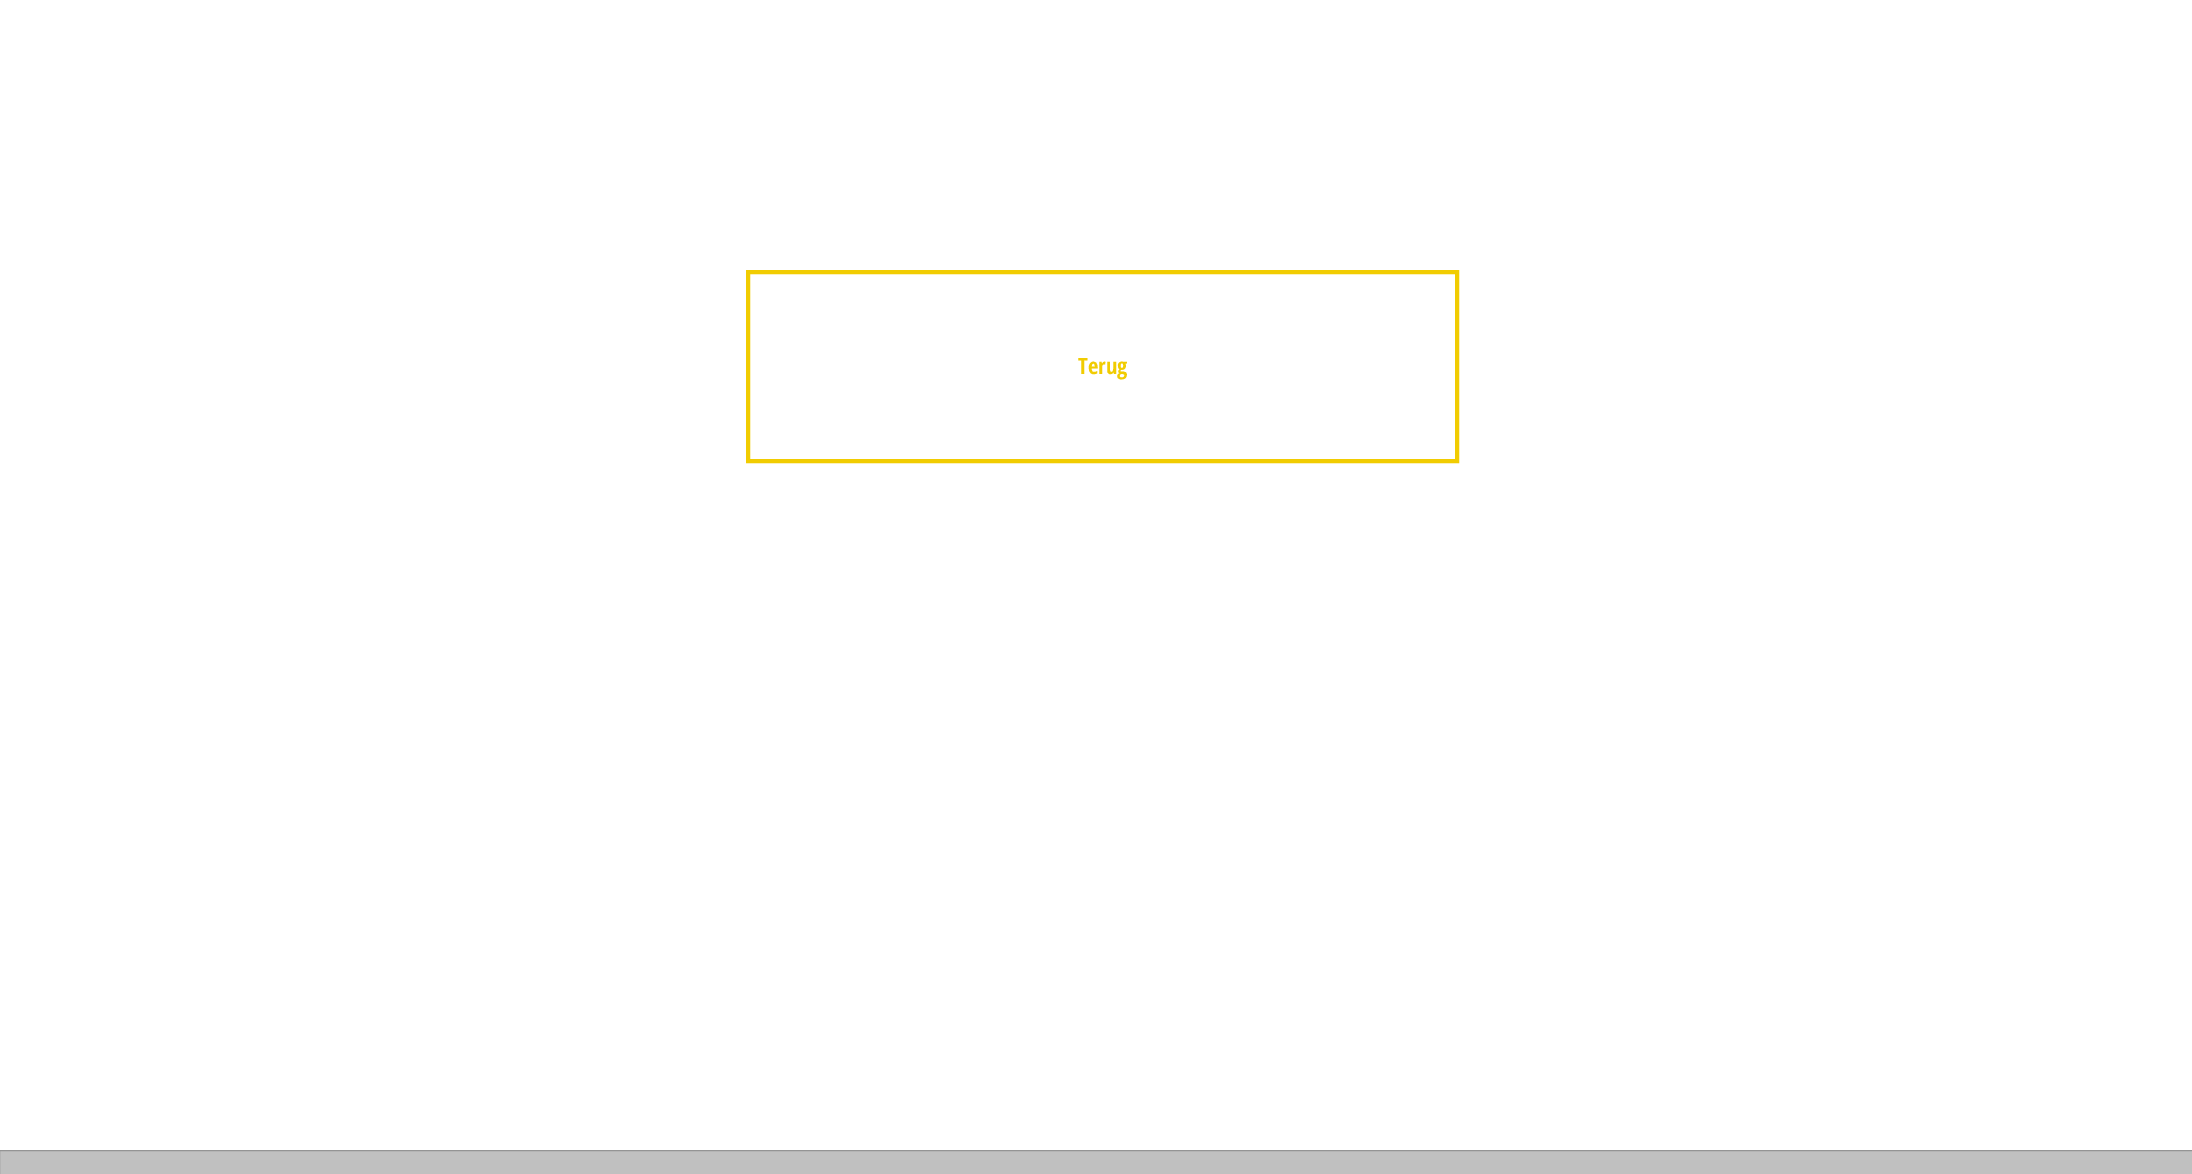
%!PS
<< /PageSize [2192 1174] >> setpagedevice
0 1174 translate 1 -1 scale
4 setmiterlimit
1 setgray
0 0 2192 1174 rectfill
0.945 0.8 0.004 setrgbcolor
4 setlinewidth
748 272 709 189 rectstroke
/OpenSansCondensed-Bold [22.5 0 0 -22.5 0 0] selectfont
1078 374 moveto (Terug) show
0.753 setgray
newpath -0.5 1150.5 moveto 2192.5 1150.5 lineto 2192.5 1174.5 lineto -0.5 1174.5 lineto closepath gsave fill grestore
0.58 setgray
1 setlinewidth
stroke
showpage
